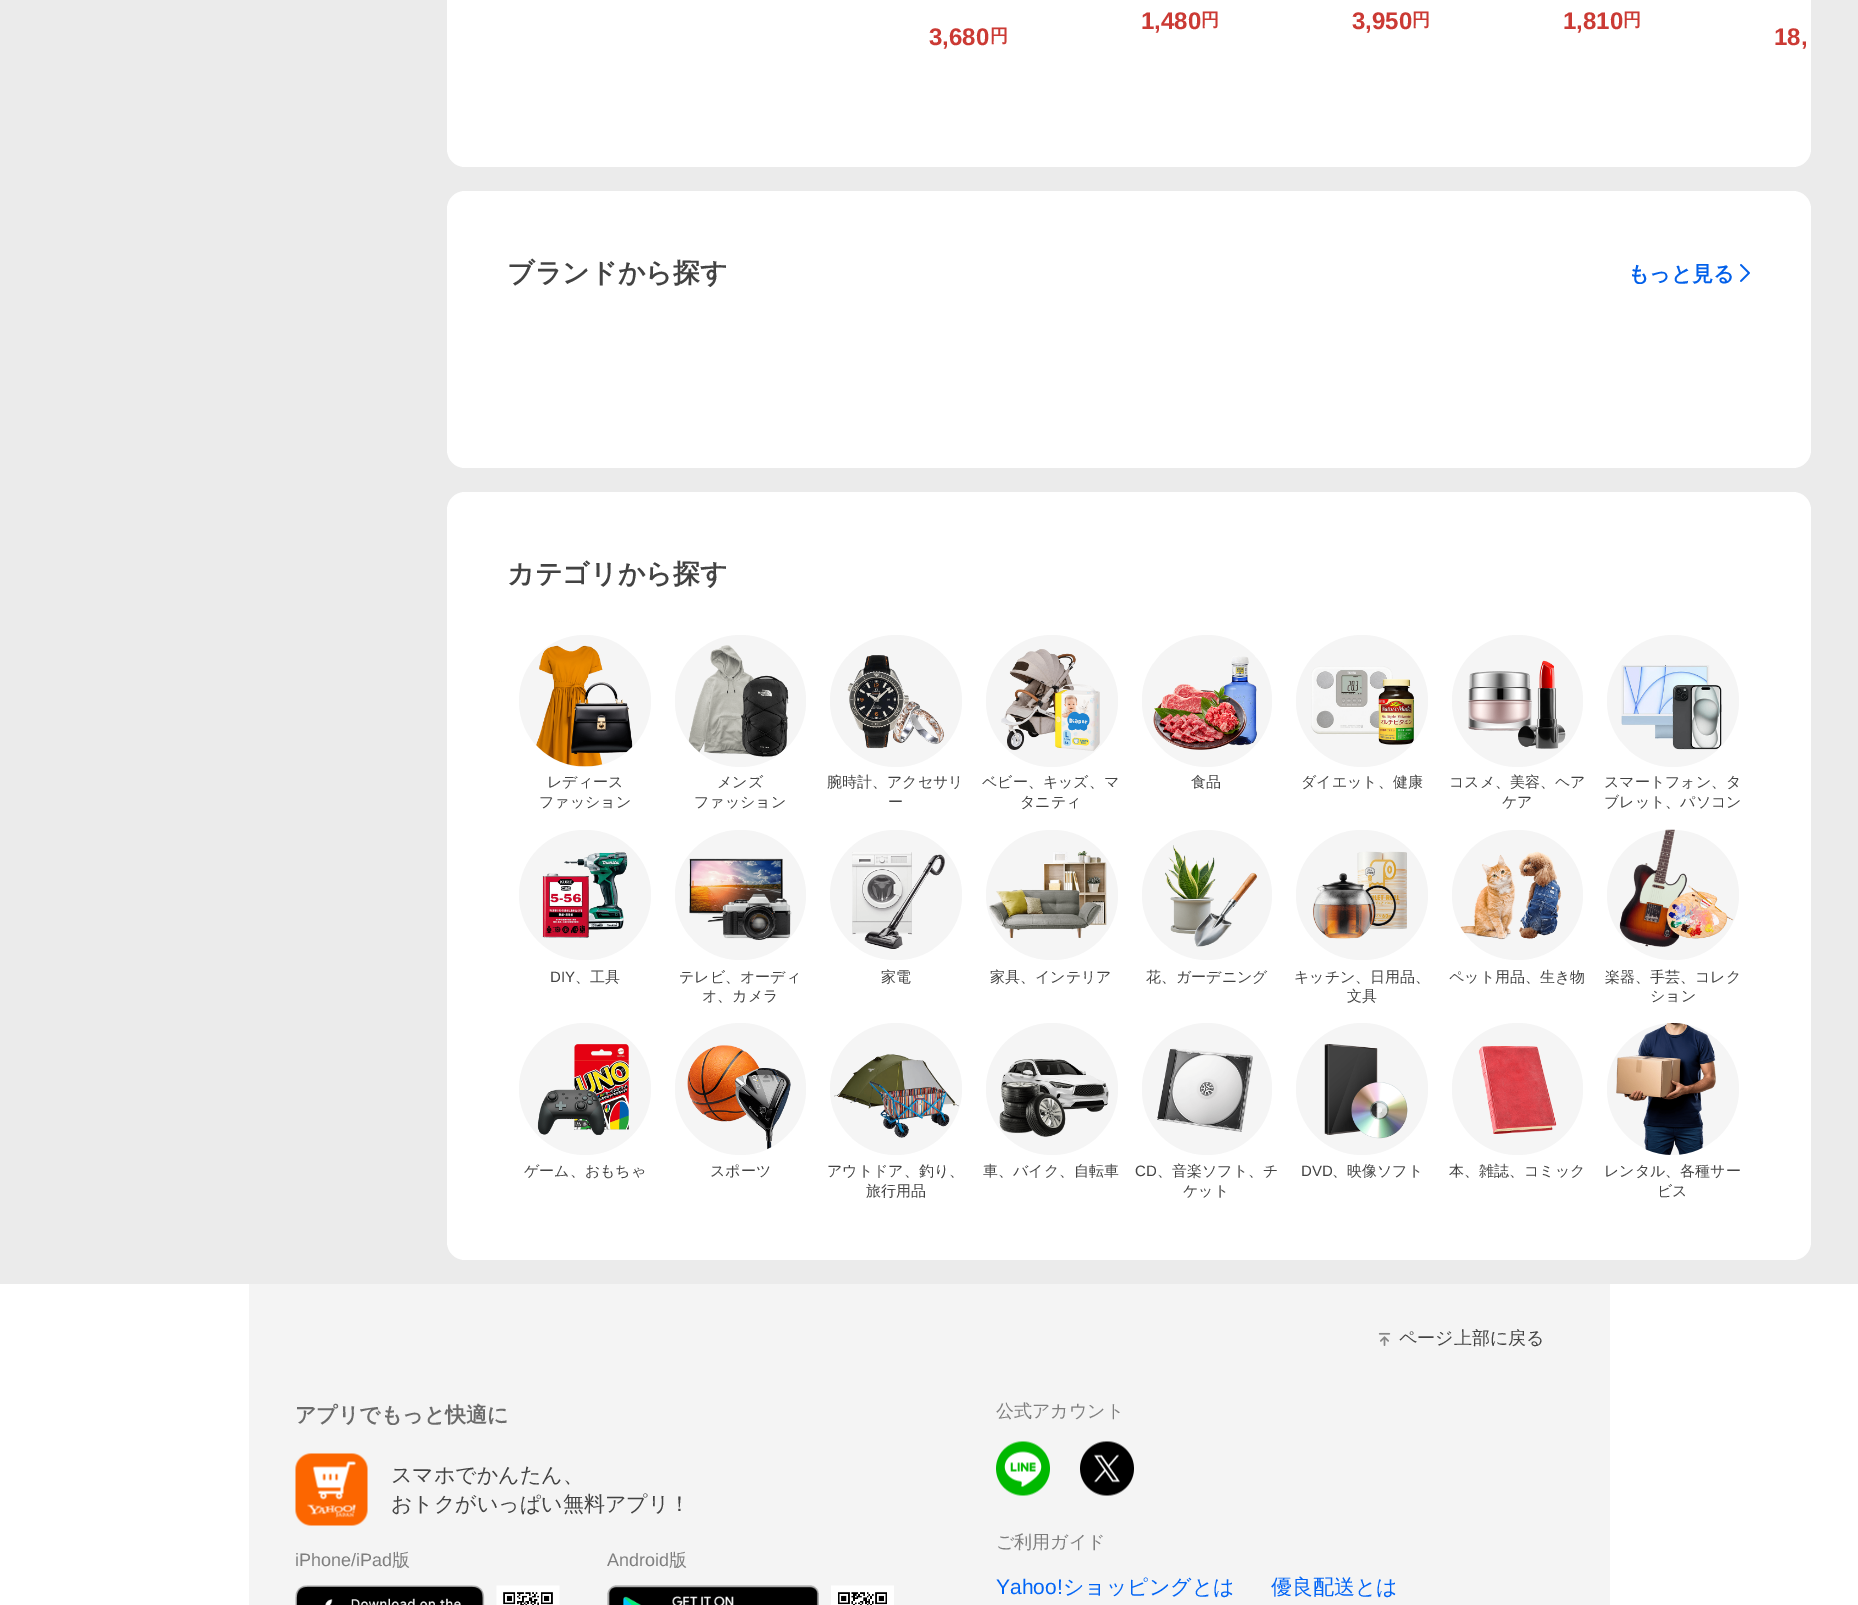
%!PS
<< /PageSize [1858 1605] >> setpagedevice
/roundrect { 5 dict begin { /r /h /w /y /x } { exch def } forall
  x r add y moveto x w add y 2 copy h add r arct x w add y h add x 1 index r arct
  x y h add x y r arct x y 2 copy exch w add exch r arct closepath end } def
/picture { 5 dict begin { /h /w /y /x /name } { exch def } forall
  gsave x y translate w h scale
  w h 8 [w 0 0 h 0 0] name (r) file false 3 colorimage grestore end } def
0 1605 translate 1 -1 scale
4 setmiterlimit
1 setgray
0 0 1858 1605 rectfill
0.922 setgray
0 0 1858 1284 rectfill
1 setgray
447 -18 1364 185 18 roundrect fill
/LiberationSans-Bold [24 0 0 -24 0 0] selectfont
0.796 0.227 0.204 setrgbcolor
1141 29 moveto (1,480) show
/WenQuanYiZenHei-Bold [18 0 0 -18 0 0] selectfont
1201 26 moveto (円) show
/LiberationSans-Bold [24 0 0 -24 0 0] selectfont
1352 29 moveto (3,950) show
/WenQuanYiZenHei-Bold [18 0 0 -18 0 0] selectfont
1412 26 moveto (円) show
/LiberationSans-Bold [24 0 0 -24 0 0] selectfont
1563 29 moveto (1,810) show
/WenQuanYiZenHei-Bold [18 0 0 -18 0 0] selectfont
1623 26 moveto (円) show
/LiberationSans-Bold [24 0 0 -24 0 0] selectfont
929 45 moveto (3,680) show
/WenQuanYiZenHei-Bold [18 0 0 -18 0 0] selectfont
990 42 moveto (円) show
/LiberationSans-Bold [24 0 0 -24 0 0] selectfont
1774 45 moveto (18,) show
1 setgray
447 191 1364 277 18 roundrect fill
/WenQuanYiZenHei-Bold [27 0 0 -27 0 0] selectfont
0.263 setgray
507 282 moveto (ブランドから探す) show
/WenQuanYiZenHei-Bold [21 0 0 -21 0 0] selectfont
0.008 0.376 0.918 setrgbcolor
1628 281 moveto (もっと見る) show
(img1.rgb) 1740 264 10 18 picture
1 setgray
447 492 1364 768 18 roundrect fill
/WenQuanYiZenHei-Bold [27 0 0 -27 0 0] selectfont
0.263 setgray
507 583 moveto (カテゴリから探す) show
0.961 setgray
newpath 585 701 66 0 360 arc closepath fill
(img2.rgb) 536 645 97 122 picture
/WenQuanYiZenHei-Medium [15 0 0 -15 0 0] selectfont
0.263 setgray
547 787 moveto (レディース) show
539 807 moveto (ファッション) show
0.961 setgray
675 635 131 132 65.5 roundrect fill
(img3.rgb) 688 645 101 112 picture
0.263 setgray
717 787 moveto (メンズ) show
694 807 moveto (ファッション) show
0.961 setgray
newpath 896 701 66 0 360 arc closepath fill
(img4.rgb) 847 655 97 94 picture
0.263 setgray
827 787 moveto (腕時計、アクセサリ) show
888 807 moveto (ー) show
0.961 setgray
newpath 1052 701 66 0 360 arc closepath fill
(img5.rgb) 1001 649 99 102 picture
0.263 setgray
982 787 moveto (ベビー、キッズ、マ) show
1020 807 moveto (タニティ) show
0.961 setgray
1142 635 130 132 65 roundrect fill
(img6.rgb) 1153 656 104 94 picture
0.263 setgray
1191 787 moveto (食品) show
0.961 setgray
newpath 1362 701 66 0 360 arc closepath fill
(img7.rgb) 1311 666 103 79 picture
0.263 setgray
1301 787 moveto (ダイエット、健康) show
0.961 setgray
1452 635 131 132 65.5 roundrect fill
(img8.rgb) 1468 660 98 89 picture
0.263 setgray
1449 787 moveto (コスメ、美容、ヘア) show
1502 807 moveto (ケア) show
0.961 setgray
newpath 1673 701 66 0 360 arc closepath fill
(img9.rgb) 1621 665 101 85 picture
0.263 setgray
1604 787 moveto (スマートフォン、タ) show
1604 807 moveto (ブレット、パソコン) show
0.961 setgray
519 830 132 130 65 roundrect fill
(img10.rgb) 542 852 86 86 picture
/LiberationSans-Regular [15 0 0 -15 0 0] selectfont
0.263 setgray
550 982 moveto (DIY) show
/WenQuanYiZenHei-Medium [15 0 0 -15 0 0] selectfont
575 982 moveto (、工具) show
0.961 setgray
675 830 131 130 65 roundrect fill
(img11.rgb) 689 858 103 82 picture
0.263 setgray
679 982 moveto (テレビ、オーディ) show
702 1001 moveto (オ、カメラ) show
0.961 setgray
830 830 132 130 65 roundrect fill
(img12.rgb) 852 852 93 97 picture
0.263 setgray
881 982 moveto (家電) show
0.961 setgray
986 830 132 130 65 roundrect fill
(img13.rgb) 989 850 118 88 picture
0.263 setgray
990 982 moveto (家具、インテリア) show
0.961 setgray
newpath 1207 895 65 0 360 arc closepath fill
(img14.rgb) 1165 845 92 102 picture
0.263 setgray
1146 982 moveto (花、ガーデニング) show
0.961 setgray
1296 830 132 130 65 roundrect fill
(img15.rgb) 1312 851 95 88 picture
0.263 setgray
1294 982 moveto (キッチン、日用品、) show
1347 1001 moveto (文具) show
0.961 setgray
1452 830 131 130 65 roundrect fill
(img16.rgb) 1460 851 102 89 picture
0.263 setgray
1449 982 moveto (ペット用品、生き物) show
0.961 setgray
1607 830 132 130 65 roundrect fill
(img17.rgb) 1619 829 115 118 picture
0.263 setgray
1605 982 moveto (楽器、手芸、コレク) show
1650 1001 moveto (ション) show
0.961 setgray
newpath 585 1089 66 0 360 arc closepath fill
(img18.rgb) 537 1044 92 91 picture
0.263 setgray
524 1176 moveto (ゲーム、おもちゃ) show
0.961 setgray
675 1023 131 132 65.5 roundrect fill
(img19.rgb) 687 1045 104 105 picture
0.263 setgray
710 1176 moveto (スポーツ) show
0.961 setgray
newpath 896 1089 66 0 360 arc closepath fill
(img20.rgb) 834 1054 125 84 picture
0.263 setgray
827 1176 moveto (アウトドア、釣り、) show
866 1196 moveto (旅行用品) show
0.961 setgray
newpath 1052 1089 66 0 360 arc closepath fill
(img21.rgb) 999 1059 110 78 picture
0.263 setgray
983 1176 moveto (車、バイク、自転車) show
0.961 setgray
1142 1023 130 132 65 roundrect fill
(img22.rgb) 1157 1048 96 84 picture
/LiberationSans-Regular [15 0 0 -15 0 0] selectfont
0.263 setgray
1135 1176 moveto (CD) show
/WenQuanYiZenHei-Medium [15 0 0 -15 0 0] selectfont
1157 1176 moveto (、音楽ソフト、チ) show
1183 1196 moveto (ケット) show
0.961 setgray
newpath 1362 1089 66 0 360 arc closepath fill
(img23.rgb) 1324 1044 84 95 picture
/LiberationSans-Regular [15 0 0 -15 0 0] selectfont
0.263 setgray
1301 1176 moveto (DVD) show
/WenQuanYiZenHei-Medium [15 0 0 -15 0 0] selectfont
1332 1176 moveto (、映像ソフト) show
0.961 setgray
1452 1023 131 132 65.5 roundrect fill
(img24.rgb) 1478 1046 79 88 picture
0.263 setgray
1449 1176 moveto (本、雑誌、コミック) show
0.961 setgray
newpath 1673 1089 66 0 360 arc closepath fill
(img25.rgb) 1616 1023 100 132 picture
0.263 setgray
1604 1176 moveto (レンタル、各種サー) show
1657 1196 moveto (ビス) show
0.957 setgray
249 1284 1361 321 rectfill
(img26.rgb) 1378 1332 13 14 picture
/WenQuanYiZenHei-Medium [18 0 0 -18 0 0] selectfont
0.263 setgray
1399 1344 moveto (ページ上部に戻る) show
/WenQuanYiZenHei-Bold [21 0 0 -21 0 0] selectfont
0.42 setgray
295 1422 moveto (アプリでもっと快適に) show
(img27.rgb) 295 1453 73 73 picture
/WenQuanYiZenHei-Medium [21 0 0 -21 0 0] selectfont
0.263 setgray
391 1482 moveto (スマホでかんたん、) show
391 1511 moveto (おトクがいっぱい無料アプリ！) show
/LiberationSans-Regular [18 0 0 -18 0 0] selectfont
0.498 setgray
295 1566 moveto (iPhone/iPad) show
/WenQuanYiZenHei-Medium [18 0 0 -18 0 0] selectfont
392 1566 moveto (版) show
(img28.rgb) 295 1585 190 20 picture
(img29.rgb) 496 1585 64 20 picture
/LiberationSans-Regular [18 0 0 -18 0 0] selectfont
607 1566 moveto (Android) show
/WenQuanYiZenHei-Medium [18 0 0 -18 0 0] selectfont
669 1566 moveto (版) show
(img30.rgb) 607 1585 212 20 picture
(img31.rgb) 831 1585 63 20 picture
996 1417 moveto (公式アカウント) show
(img32.rgb) 996 1441 54 55 picture
(img33.rgb) 1080 1441 54 55 picture
996 1548 moveto (ご利用ガイド) show
/LiberationSans-Regular [21 0 0 -21 0 0] selectfont
0.008 0.396 0.965 setrgbcolor
996 1594 moveto (Yahoo!) show
/WenQuanYiZenHei-Medium [21 0 0 -21 0 0] selectfont
1063 1594 moveto (ショッピングとは) show
1271 1594 moveto (優良配送とは) show
showpage
